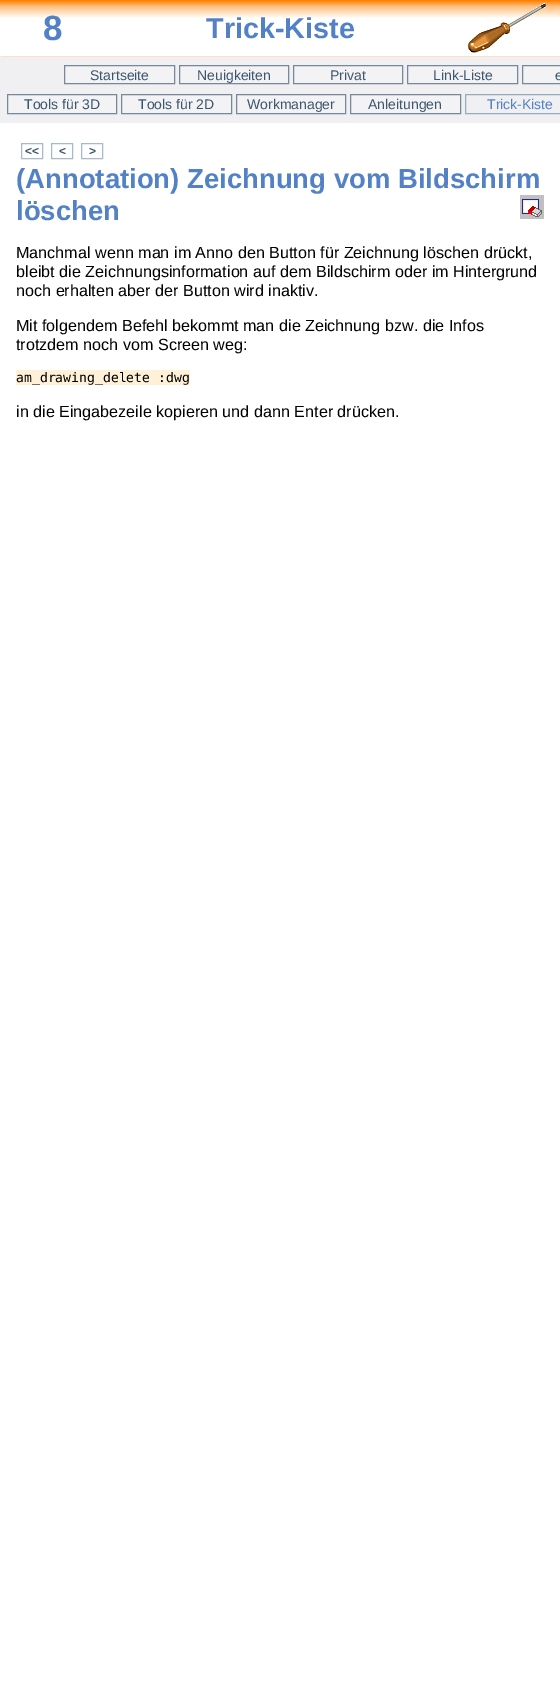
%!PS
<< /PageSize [560 1684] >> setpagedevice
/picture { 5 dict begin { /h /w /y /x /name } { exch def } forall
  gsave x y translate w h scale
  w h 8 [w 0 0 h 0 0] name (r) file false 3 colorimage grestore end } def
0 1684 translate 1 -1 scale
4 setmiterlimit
1 setgray
0 0 560 1684 rectfill
(img1.rgb) 0 0 560 18 picture
/LiberationSans-Bold [35 0 0 -35 0 0] selectfont
0.322 0.506 0.776 setrgbcolor
43 40 moveto (8) show
/LiberationSans-Bold [28.75 0 0 -28.75 0 0] selectfont
206 38 moveto (Trick-Kiste) show
(img2.rgb) 468 3 78 50 picture
0.941 0.941 0.949 setrgbcolor
1 57 559 66 rectfill
1 0.875 0.749 setrgbcolor
0 56 560 1 rectfill
0.941 0.941 0.949 setrgbcolor
0 56 1 67 rectfill
0.953 0.953 0.961 setrgbcolor
newpath 64.5 65.5 moveto 174.5 65.5 lineto 174.5 83.5 lineto 64.5 83.5 lineto closepath gsave fill grestore
0.467 0.533 0.6 setrgbcolor
stroke
/LiberationSans-Regular [14 0 0 -14 0 0] selectfont
0.235 0.337 0.424 setrgbcolor
90 80 moveto (Startseite) show
0.953 0.953 0.961 setrgbcolor
newpath 179.5 65.5 moveto 288.5 65.5 lineto 288.5 83.5 lineto 179.5 83.5 lineto closepath gsave fill grestore
0.467 0.533 0.6 setrgbcolor
stroke
0.235 0.337 0.424 setrgbcolor
197 80 moveto (Neuigkeiten) show
0.953 0.953 0.961 setrgbcolor
newpath 293.5 65.5 moveto 402.5 65.5 lineto 402.5 83.5 lineto 293.5 83.5 lineto closepath gsave fill grestore
0.467 0.533 0.6 setrgbcolor
stroke
0.235 0.337 0.424 setrgbcolor
330 80 moveto (Privat) show
0.953 0.953 0.961 setrgbcolor
newpath 407.5 65.5 moveto 517.5 65.5 lineto 517.5 83.5 lineto 407.5 83.5 lineto closepath gsave fill grestore
0.467 0.533 0.6 setrgbcolor
stroke
0.235 0.337 0.424 setrgbcolor
433 80 moveto (Link-Liste) show
0.953 0.953 0.961 setrgbcolor
newpath 522.5 65.5 moveto 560.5 65.5 lineto 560.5 83.5 lineto 522.5 83.5 lineto closepath gsave fill grestore
0.467 0.533 0.6 setrgbcolor
stroke
0.235 0.337 0.424 setrgbcolor
555 80 moveto (e) show
0.953 0.953 0.961 setrgbcolor
newpath 7.5 94.5 moveto 116.5 94.5 lineto 116.5 113.5 lineto 7.5 113.5 lineto closepath gsave fill grestore
0.467 0.533 0.6 setrgbcolor
stroke
0.235 0.337 0.424 setrgbcolor
24 109 moveto (Tools für 3D) show
0.953 0.953 0.961 setrgbcolor
newpath 121.5 94.5 moveto 231.5 94.5 lineto 231.5 113.5 lineto 121.5 113.5 lineto closepath gsave fill grestore
0.467 0.533 0.6 setrgbcolor
stroke
0.235 0.337 0.424 setrgbcolor
138 109 moveto (Tools für 2D) show
0.953 0.953 0.961 setrgbcolor
newpath 236.5 94.5 moveto 345.5 94.5 lineto 345.5 113.5 lineto 236.5 113.5 lineto closepath gsave fill grestore
0.467 0.533 0.6 setrgbcolor
stroke
0.235 0.337 0.424 setrgbcolor
247 109 moveto (Workmanager) show
0.953 0.953 0.961 setrgbcolor
newpath 350.5 94.5 moveto 460.5 94.5 lineto 460.5 113.5 lineto 350.5 113.5 lineto closepath gsave fill grestore
0.467 0.533 0.6 setrgbcolor
stroke
0.235 0.337 0.424 setrgbcolor
368 109 moveto (Anleitungen) show
0.6 0.667 0.733 setrgbcolor
465.5 94.5 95 19 rectstroke
0.322 0.506 0.776 setrgbcolor
487 109 moveto (Trick-Kiste) show
0.647 0.729 0.808 setrgbcolor
21.5 143.5 21 15 rectstroke
/LiberationSans-Bold [12 0 0 -12 0 0] selectfont
0.235 0.337 0.424 setrgbcolor
25 155 moveto (<<) show
0.647 0.729 0.808 setrgbcolor
51.5 143.5 21 15 rectstroke
0.235 0.337 0.424 setrgbcolor
59 155 moveto (<) show
0.647 0.729 0.808 setrgbcolor
81.5 143.5 21 15 rectstroke
0.235 0.337 0.424 setrgbcolor
89 155 moveto (>) show
/LiberationSans-Bold [27.5 0 0 -27.5 0 0] selectfont
0.322 0.506 0.776 setrgbcolor
16 188 moveto (\(Annotation\) Zeichnung vom Bildschirm) show
16 220 moveto (löschen) show
(img3.rgb) 520 195 24 24 picture
/LiberationSans-Regular [16.15 0 0 -16.15 0 0] selectfont
0 setgray
16 258 moveto (Manchmal wenn man im Anno den Button für Zeichnung löschen drückt,) show
16 277 moveto (bleibt die Zeichnungsinformation auf dem Bildschirm oder im Hintergrund) show
16 296 moveto (noch erhalten aber der Button wird inaktiv.) show
16 331 moveto (Mit folgendem Befehl bekommt man die Zeichnung bzw. die Infos) show
16 350 moveto (trotzdem noch vom Screen weg:) show
1 0.941 0.847 setrgbcolor
16 370 174 15 rectfill
/DejaVuSansMono-Regular [13.1 0 0 -13.1 0 0] selectfont
0 setgray
16 382 moveto (am_drawing_delete :dwg) show
/LiberationSans-Regular [16.15 0 0 -16.15 0 0] selectfont
16 417 moveto (in die Eingabezeile kopieren und dann Enter drücken.) show
showpage
